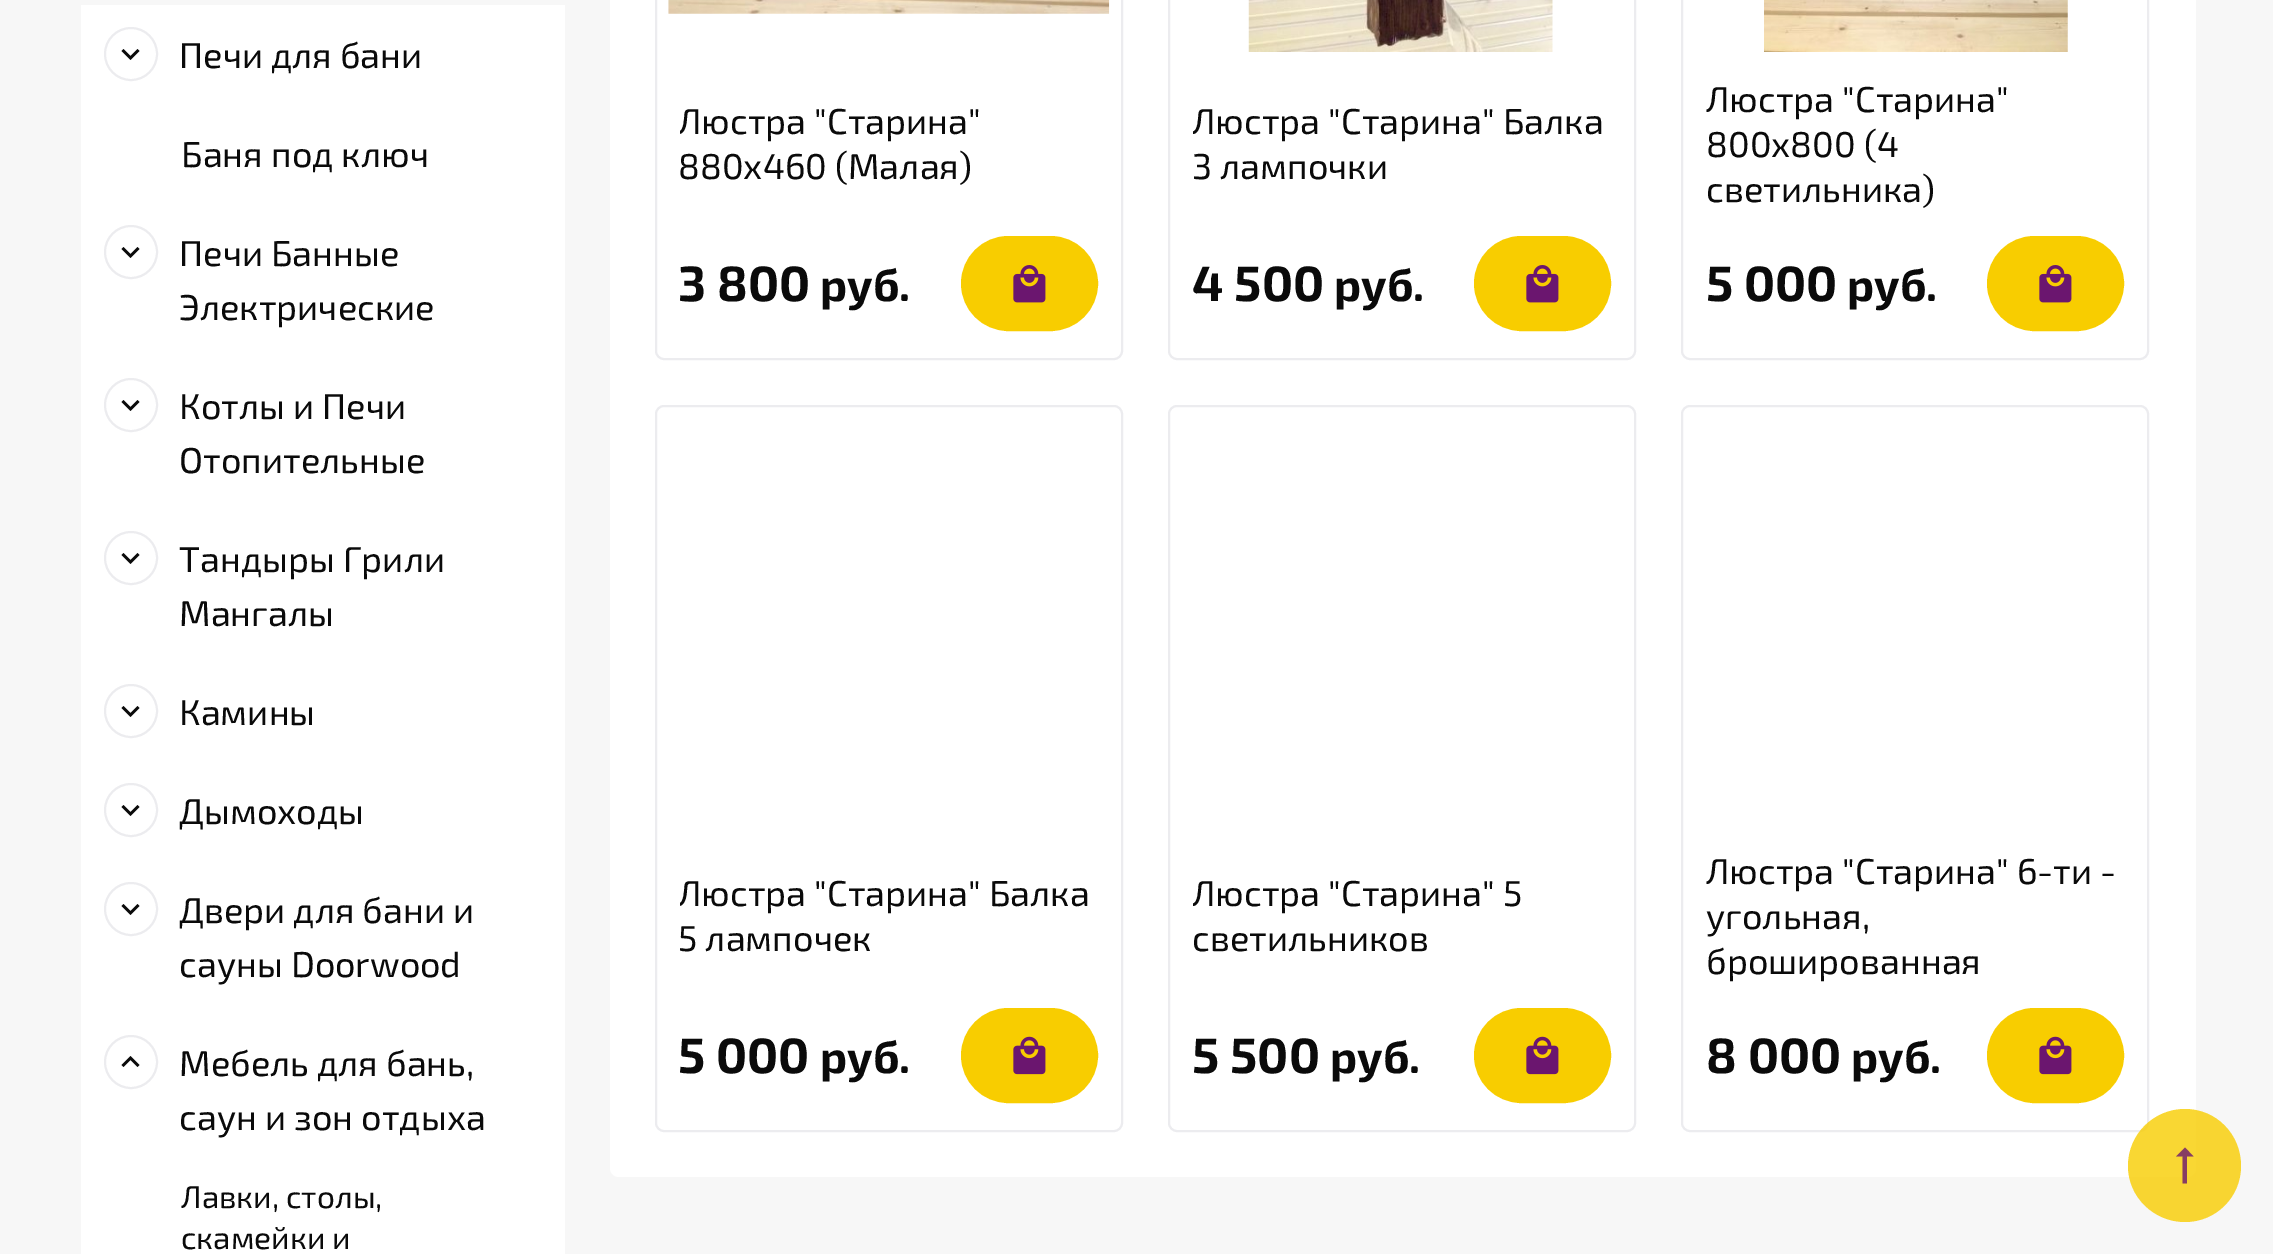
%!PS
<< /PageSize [2273 1254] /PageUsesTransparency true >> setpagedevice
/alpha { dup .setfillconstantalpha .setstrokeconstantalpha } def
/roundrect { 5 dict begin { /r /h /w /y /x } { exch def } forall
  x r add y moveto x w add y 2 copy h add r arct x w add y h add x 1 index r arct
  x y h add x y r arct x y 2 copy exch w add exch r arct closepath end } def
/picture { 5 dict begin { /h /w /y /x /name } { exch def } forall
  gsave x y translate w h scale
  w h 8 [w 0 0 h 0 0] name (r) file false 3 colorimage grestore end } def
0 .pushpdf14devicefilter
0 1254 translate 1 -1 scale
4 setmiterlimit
0.969 setgray
0 0 2273 1254 rectfill
1 setgray
81 5 484 1249 rectfill
0.925 0.925 0.937 setrgbcolor
2 setlinewidth
newpath 131 54 26 0 360 arc closepath stroke
0.039 setgray
newpath 123.5 49 moveto 130.5 56 lineto 137.5 49 lineto 139.5 51 lineto 130.5 60 lineto 121.5 51 lineto closepath fill
/Exo2-Regular [36 0 0 -36 0 0] selectfont
179 68 moveto (Печи для бани) show
181 167 moveto (Баня под ключ) show
0.925 0.925 0.937 setrgbcolor
newpath 131 252 26 0 360 arc closepath stroke
0.039 setgray
newpath 123.5 247 moveto 130.5 254 lineto 137.5 247 lineto 139.5 249 lineto 130.5 258 lineto 121.5 249 lineto closepath fill
179 266 moveto (Печи Банные) show
179 320 moveto (Электрические) show
0.925 0.925 0.937 setrgbcolor
newpath 131 405 26 0 360 arc closepath stroke
0.039 setgray
newpath 123.5 400 moveto 130.5 407 lineto 137.5 400 lineto 139.5 402 lineto 130.5 411 lineto 121.5 402 lineto closepath fill
179 419 moveto (Котлы и Печи) show
179 473 moveto (Отопительные) show
0.925 0.925 0.937 setrgbcolor
newpath 131 558 26 0 360 arc closepath stroke
0.039 setgray
newpath 123.5 553 moveto 130.5 560 lineto 137.5 553 lineto 139.5 555 lineto 130.5 564 lineto 121.5 555 lineto closepath fill
179 572 moveto (Тандыры Грили) show
179 626 moveto (Мангалы) show
0.925 0.925 0.937 setrgbcolor
newpath 131 711 26 0 360 arc closepath stroke
0.039 setgray
newpath 123.5 706 moveto 130.5 713 lineto 137.5 706 lineto 139.5 708 lineto 130.5 717 lineto 121.5 708 lineto closepath fill
179 725 moveto (Камины) show
0.925 0.925 0.937 setrgbcolor
newpath 131 810 26 0 360 arc closepath stroke
0.039 setgray
newpath 123.5 805 moveto 130.5 812 lineto 137.5 805 lineto 139.5 807 lineto 130.5 816 lineto 121.5 807 lineto closepath fill
179 824 moveto (Дымоходы) show
0.925 0.925 0.937 setrgbcolor
newpath 131 909 26 0 360 arc closepath stroke
0.039 setgray
newpath 123.5 904 moveto 130.5 911 lineto 137.5 904 lineto 139.5 906 lineto 130.5 915 lineto 121.5 906 lineto closepath fill
179 923 moveto (Двери для бани и) show
179 977 moveto (сауны Doorwood) show
0.925 0.925 0.937 setrgbcolor
newpath 131 1062 26 0 360 arc closepath stroke
0.039 setgray
newpath 123.5 1067 moveto 121.5 1065 lineto 130.5 1056 lineto 139.5 1065 lineto 137.5 1067 lineto 130.5 1060 lineto closepath fill
179 1076 moveto (Мебель для бань,) show
179 1130 moveto (саун и зон отдыха) show
/Exo2-Regular [31.5 0 0 -31.5 0 0] selectfont
181 1208 moveto (Лавки, столы,) show
181 1249 moveto (скамейки и) show
1 setgray
610 -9 1586 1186 9 roundrect fill
0.925 0.925 0.937 setrgbcolor
656 -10 466 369 8 roundrect stroke
(img1.rgb) 668 0 442 14 picture
gsave
680 77 418 135 rectclip
/Exo2-Regular [36 0 0 -36 0 0] selectfont
0.039 setgray
678 134 moveto (Люстра "Старина") show
grestore
/Exo2-Regular [36 0 0 -36 0 0] selectfont
0.039 setgray
678 179 moveto (880х460 \(Малая\)) show
/Exo2-Bold [49.5 0 0 -49.5 0 0] selectfont
678 301 moveto (3 800) show
/Exo2-Bold [45 0 0 -45 0 0] selectfont
820 301 moveto (руб.) show
0.973 0.804 0 setrgbcolor
962 237 135 93 46.5 roundrect gsave fill grestore
stroke
(img2.rgb) 1013 265 33 38 picture
0.925 0.925 0.937 setrgbcolor
1169 -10 466 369 8 roundrect stroke
(img3.rgb) 1248 0 305 52 picture
gsave
1193 77 418 135 rectclip
/Exo2-Regular [36 0 0 -36 0 0] selectfont
0.039 setgray
1192 134 moveto (Люстра "Старина" Балка) show
grestore
/Exo2-Regular [36 0 0 -36 0 0] selectfont
0.039 setgray
1192 179 moveto (3 лампочки) show
/Exo2-Bold [49.5 0 0 -49.5 0 0] selectfont
1192 301 moveto (4 500) show
/Exo2-Bold [45 0 0 -45 0 0] selectfont
1334 301 moveto (руб.) show
0.973 0.804 0 setrgbcolor
1475 237 135 93 46.5 roundrect gsave fill grestore
stroke
(img2.rgb) 1526 265 33 38 picture
0.925 0.925 0.937 setrgbcolor
1682 -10 466 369 8 roundrect stroke
(img4.rgb) 1764 0 304 52 picture
/Exo2-Regular [36 0 0 -36 0 0] selectfont
0.039 setgray
1706 112 moveto (Люстра "Старина") show
1706 157 moveto (800х800 \(4) show
1706 202 moveto (светильника\)) show
/Exo2-Bold [49.5 0 0 -49.5 0 0] selectfont
1706 301 moveto (5 000) show
/Exo2-Bold [45 0 0 -45 0 0] selectfont
1847 301 moveto (руб.) show
0.973 0.804 0 setrgbcolor
1988 237 135 93 46.5 roundrect gsave fill grestore
stroke
(img2.rgb) 2039 265 33 38 picture
0.925 0.925 0.937 setrgbcolor
656 406 466 725 8 roundrect stroke
gsave
680 848 418 135 rectclip
/Exo2-Regular [36 0 0 -36 0 0] selectfont
0.039 setgray
678 906 moveto (Люстра "Старина" Балка) show
grestore
/Exo2-Regular [36 0 0 -36 0 0] selectfont
0.039 setgray
678 951 moveto (5 лампочек) show
/Exo2-Bold [49.5 0 0 -49.5 0 0] selectfont
678 1073 moveto (5 000) show
/Exo2-Bold [45 0 0 -45 0 0] selectfont
820 1073 moveto (руб.) show
0.973 0.804 0 setrgbcolor
962 1009 135 93 46.5 roundrect gsave fill grestore
stroke
(img5.rgb) 1013 1036 33 39 picture
0.925 0.925 0.937 setrgbcolor
1169 406 466 725 8 roundrect stroke
gsave
1193 848 418 135 rectclip
/Exo2-Regular [36 0 0 -36 0 0] selectfont
0.039 setgray
1192 906 moveto (Люстра "Старина" 5) show
grestore
/Exo2-Regular [36 0 0 -36 0 0] selectfont
0.039 setgray
1192 951 moveto (светильников) show
/Exo2-Bold [49.5 0 0 -49.5 0 0] selectfont
1192 1073 moveto (5 500) show
/Exo2-Bold [45 0 0 -45 0 0] selectfont
1330 1073 moveto (руб.) show
0.973 0.804 0 setrgbcolor
1475 1009 135 93 46.5 roundrect gsave fill grestore
stroke
(img5.rgb) 1526 1036 33 39 picture
0.925 0.925 0.937 setrgbcolor
1682 406 466 725 8 roundrect stroke
/Exo2-Regular [36 0 0 -36 0 0] selectfont
0.039 setgray
1706 884 moveto (Люстра "Старина" 6-ти -) show
1706 929 moveto (угольная,) show
1706 974 moveto (брошированная) show
/Exo2-Bold [49.5 0 0 -49.5 0 0] selectfont
1706 1073 moveto (8 000) show
/Exo2-Bold [45 0 0 -45 0 0] selectfont
1851 1073 moveto (руб.) show
0.973 0.804 0 setrgbcolor
1988 1009 135 93 46.5 roundrect gsave fill grestore
stroke
(img5.rgb) 2039 1036 33 39 picture
0.8 alpha
newpath 2128 1166 moveto 2128 1134 2154 1109 2185 1109 curveto 2216 1109 2241 1134 2241 1166 curveto 2241 1197 2216 1222 2185 1222 curveto 2154 1222 2128 1197 2128 1166 curveto closepath fill
1 alpha
0.529 0.239 0.388 setrgbcolor
newpath 2182.5 1156.5 moveto 2176 1156.5 lineto 2185 1147.5 lineto 2193.5 1156.5 lineto 2187 1156.5 lineto 2187 1183.5 lineto 2182.5 1183.5 lineto closepath fill
.poppdf14devicefilter showpage
